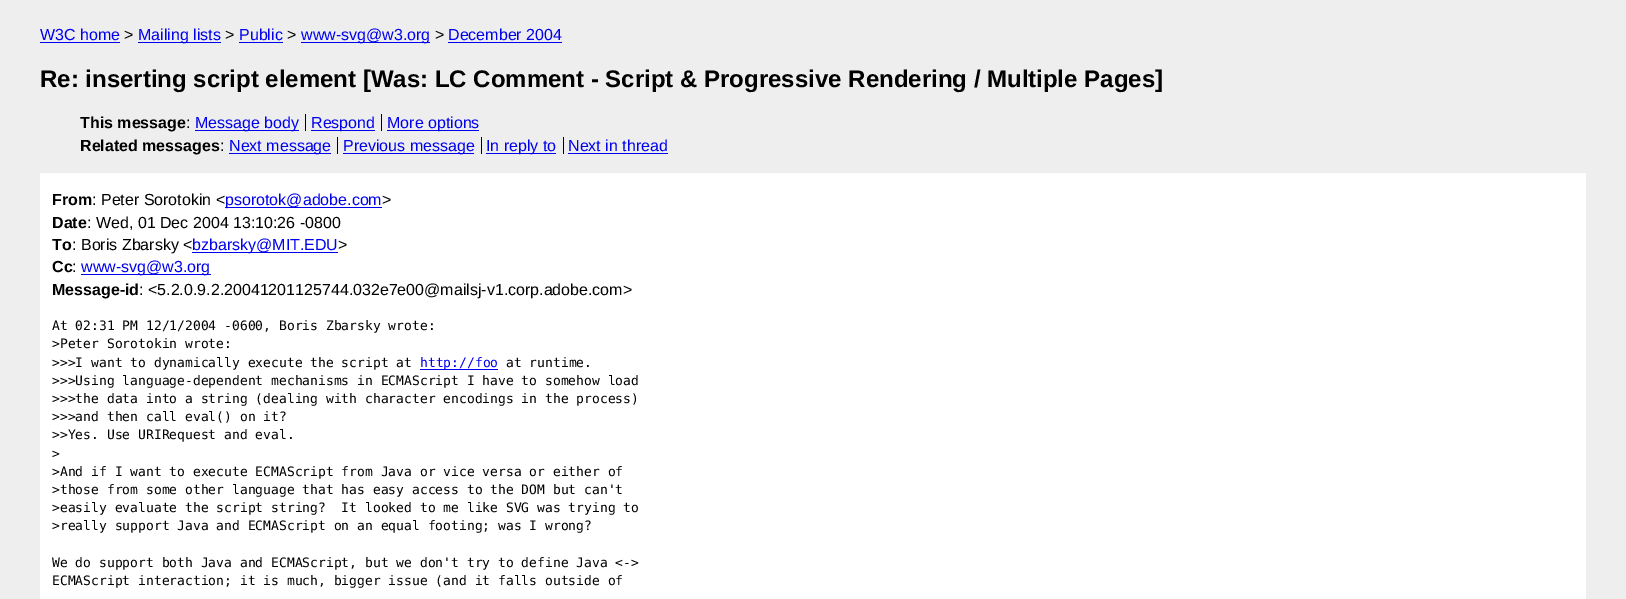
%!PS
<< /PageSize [1626 599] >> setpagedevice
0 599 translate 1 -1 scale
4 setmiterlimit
0.933 setgray
0 0 1626 599 rectfill
/LiberationSans-Regular [16 0 0 -16 0 0] selectfont
0 0 0.933 setrgbcolor
40 40 moveto (W3C home) show
40 42 80 1 rectfill
0 setgray
124 40 moveto (>) show
0 0 0.933 setrgbcolor
138 42 83 1 rectfill
138 40 moveto (Mailing lists) show
0 setgray
225 40 moveto (>) show
0 0 0.933 setrgbcolor
239 40 moveto (Public) show
239 42 44 1 rectfill
0 setgray
287 40 moveto (>) show
0 0 0.933 setrgbcolor
301 42 129 1 rectfill
301 40 moveto (www-svg@w3.org) show
0 setgray
435 40 moveto (>) show
0 0 0.933 setrgbcolor
448 40 moveto (December 2004) show
448 42 114 1 rectfill
/LiberationSans-Bold [24 0 0 -24 0 0] selectfont
0 setgray
40 87 moveto (Re: inserting script element [Was: LC Comment - Script & Progressive Rendering / Multiple Pages]) show
/LiberationSans-Bold [16 0 0 -16 0 0] selectfont
80 128 moveto (This message) show
/LiberationSans-Regular [16 0 0 -16 0 0] selectfont
186 128 moveto (:) show
0 0 0.933 setrgbcolor
195 130 104 1 rectfill
195 128 moveto (Message body) show
311 130 64 1 rectfill
311 128 moveto (Respond) show
0 setgray
305 114 1 17 rectfill
0 0 0.933 setrgbcolor
387 130 92 1 rectfill
387 128 moveto (More options) show
0 setgray
381 114 1 17 rectfill
/LiberationSans-Bold [16 0 0 -16 0 0] selectfont
80 151 moveto (Related messages) show
/LiberationSans-Regular [16 0 0 -16 0 0] selectfont
220 151 moveto (:) show
0 0 0.933 setrgbcolor
229 153 102 1 rectfill
229 151 moveto (Next message) show
343 153 131 1 rectfill
343 151 moveto (Previous message) show
0 setgray
337 137 1 17 rectfill
0 0 0.933 setrgbcolor
486 153 70 1 rectfill
486 151 moveto (In reply to) show
0 setgray
481 137 1 17 rectfill
0 0 0.933 setrgbcolor
568 151 moveto (Next in thread) show
0 setgray
563 137 1 17 rectfill
0 0 0.933 setrgbcolor
568 153 100 1 rectfill
1 setgray
40 173 1546 426 rectfill
/LiberationSans-Bold [16 0 0 -16 0 0] selectfont
0 setgray
52 205 moveto (From) show
/LiberationSans-Regular [16 0 0 -16 0 0] selectfont
92 205 moveto (: Peter Sorotokin <) show
0 0 0.933 setrgbcolor
225 207 157 1 rectfill
225 205 moveto (psorotok@adobe.com) show
0 setgray
382 205 moveto (>) show
/LiberationSans-Bold [16 0 0 -16 0 0] selectfont
52 228 moveto (Date) show
/LiberationSans-Regular [16 0 0 -16 0 0] selectfont
87 228 moveto (: Wed, 01 Dec 2004 13:10:26 -0800) show
/LiberationSans-Bold [16 0 0 -16 0 0] selectfont
52 250 moveto (To) show
/LiberationSans-Regular [16 0 0 -16 0 0] selectfont
72 250 moveto (: Boris Zbarsky <) show
0 0 0.933 setrgbcolor
192 252 146 1 rectfill
192 250 moveto (bzbarsky@MIT.EDU) show
0 setgray
338 250 moveto (>) show
/LiberationSans-Bold [16 0 0 -16 0 0] selectfont
52 272 moveto (Cc) show
/LiberationSans-Regular [16 0 0 -16 0 0] selectfont
72 272 moveto (:) show
0 0 0.933 setrgbcolor
81 274 130 1 rectfill
81 272 moveto (www-svg@w3.org) show
/LiberationSans-Bold [16 0 0 -16 0 0] selectfont
0 setgray
52 295 moveto (Message-id) show
/LiberationSans-Regular [16 0 0 -16 0 0] selectfont
139 295 moveto (: <5.2.0.9.2.20041201125744.032e7e00@mailsj-v1.corp.adobe.com>) show
/DejaVuSansMono-Regular [13 0 0 -13 0 0] selectfont
52 330 moveto (At 02:31 PM 12/1/2004 -0600, Boris Zbarsky wrote:) show
52 348 moveto (>Peter Sorotokin wrote:) show
52 367 moveto (>>>I want to dynamically execute the script at) show
0 0 0.933 setrgbcolor
420 369 78 1 rectfill
420 367 moveto (http://foo) show
0 setgray
506 367 moveto (at runtime.) show
52 385 moveto (>>>Using language-dependent mechanisms in ECMAScript I have to somehow load) show
52 403 moveto (>>>the data into a string \(dealing with character encodings in the process\)) show
52 421 moveto (>>>and then call eval\(\) on it?) show
52 439 moveto (>>Yes. Use URIRequest and eval.) show
52 458 moveto (>) show
52 476 moveto (>And if I want to execute ECMAScript from Java or vice versa or either of) show
52 494 moveto (>those from some other language that has easy access to the DOM but can't) show
52 512 moveto (>easily evaluate the script string?  It looked to me like SVG was trying to) show
52 530 moveto (>really support Java and ECMAScript on an equal footing; was I wrong?) show
52 567 moveto (We do support both Java and ECMAScript, but we don't try to define Java <->) show
52 585 moveto (ECMAScript interaction; it is much, bigger issue \(and it falls outside of) show
showpage
